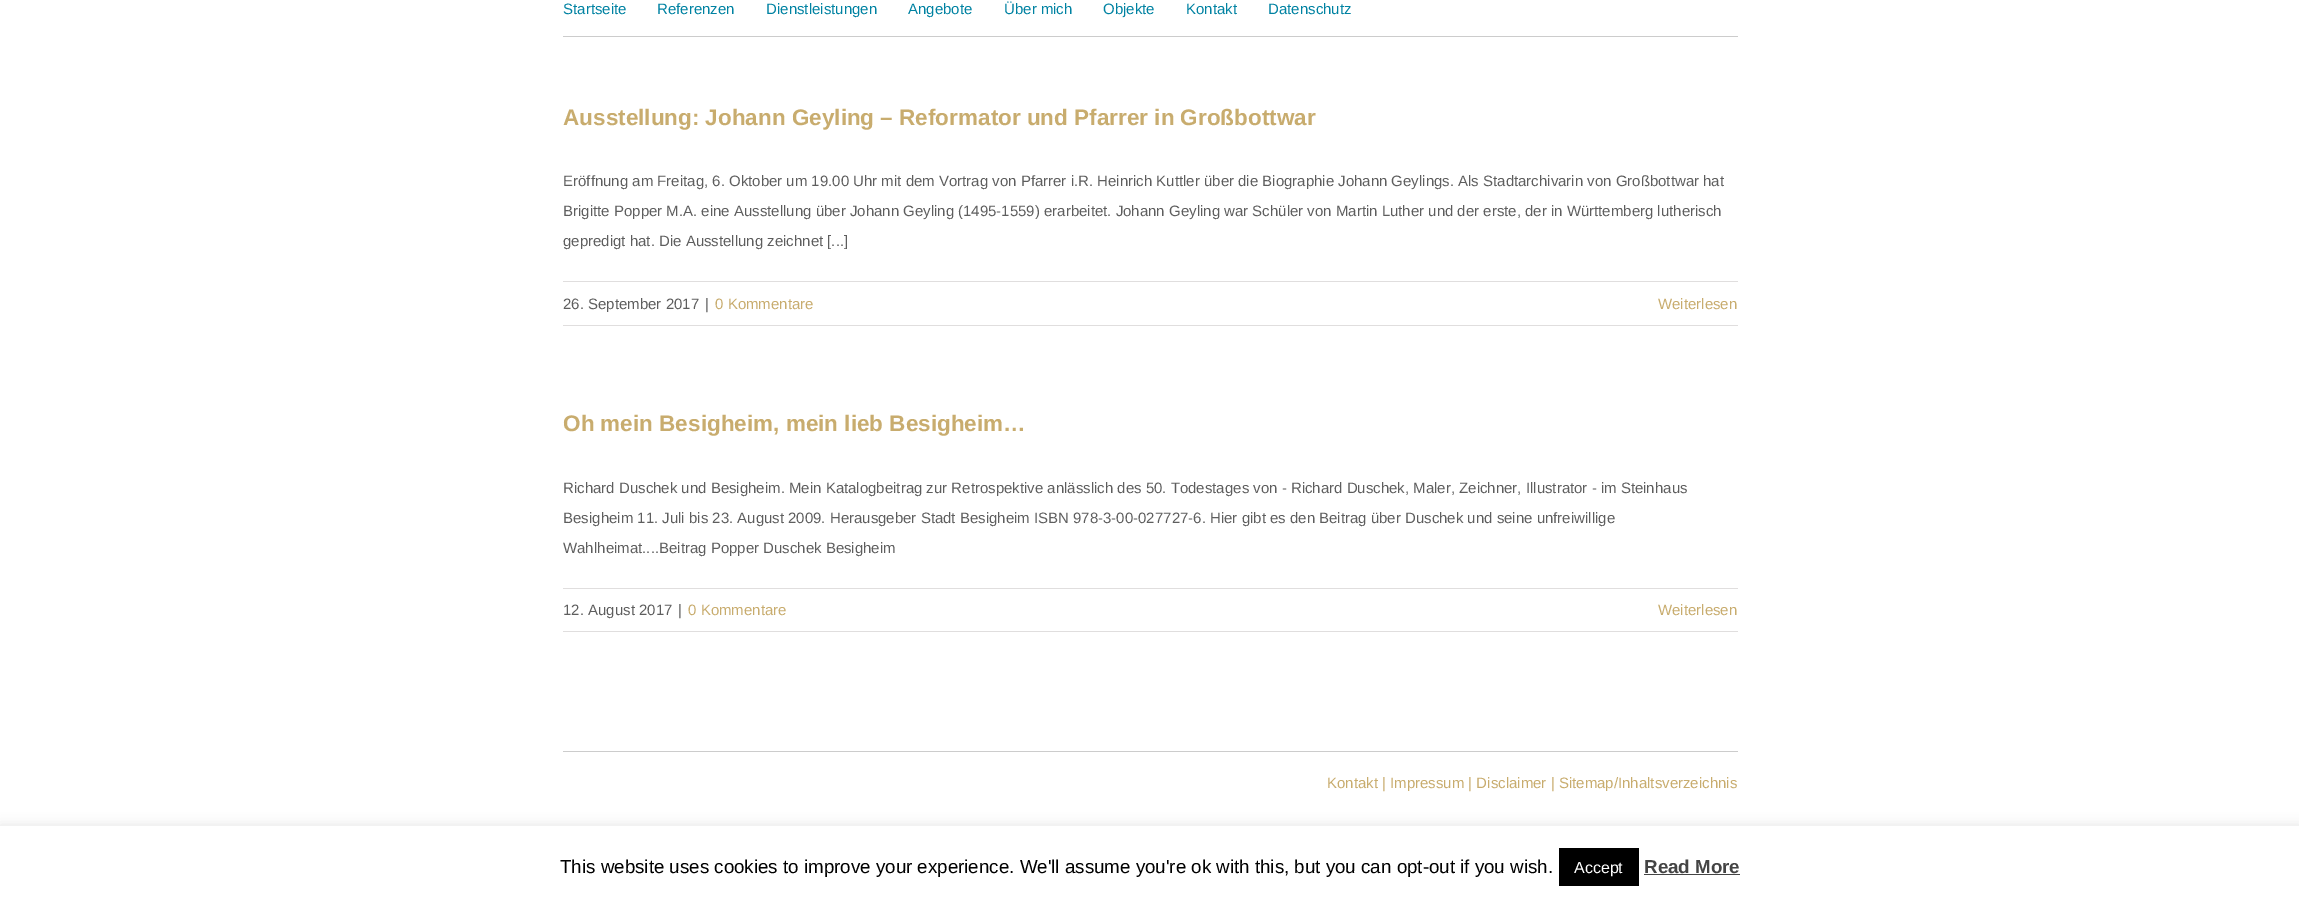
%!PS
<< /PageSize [2299 901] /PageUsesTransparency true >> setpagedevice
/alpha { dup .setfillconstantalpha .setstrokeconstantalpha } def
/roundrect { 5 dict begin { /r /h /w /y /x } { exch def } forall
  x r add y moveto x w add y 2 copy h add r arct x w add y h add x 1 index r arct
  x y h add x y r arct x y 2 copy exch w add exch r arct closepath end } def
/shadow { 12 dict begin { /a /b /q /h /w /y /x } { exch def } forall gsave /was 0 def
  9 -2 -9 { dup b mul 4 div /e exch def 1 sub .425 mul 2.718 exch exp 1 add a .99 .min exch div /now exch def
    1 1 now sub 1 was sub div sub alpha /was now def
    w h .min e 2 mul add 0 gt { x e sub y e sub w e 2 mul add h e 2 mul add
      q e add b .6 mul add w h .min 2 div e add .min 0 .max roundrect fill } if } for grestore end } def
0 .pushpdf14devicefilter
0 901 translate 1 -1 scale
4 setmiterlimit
1 setgray
0 0 2299 901 rectfill
0.8 setgray
563 36 1175 1 rectfill
/LiberationSans-Regular [15 0 0 -15 0 0] selectfont
0 0.51 0.635 setrgbcolor
563 14 moveto (Startseite) show
657 14 moveto (Referenzen) show
766 14 moveto (Dienstleistungen) show
908 14 moveto (Angebote) show
1004 14 moveto (Über mich) show
1103 14 moveto (Objekte) show
1186 14 moveto (Kontakt) show
1268 14 moveto (Datenschutz) show
/LiberationSans-Bold [22.5 0 0 -22.5 0 0] selectfont
0.784 0.675 0.431 setrgbcolor
563 125 moveto (Ausstellung: Johann Geyling – Reformator und Pfarrer in Großbottwar) show
/LiberationSans-Regular [15 0 0 -15 0 0] selectfont
0.369 setgray
563 186 moveto (Eröffnung am Freitag, 6. Oktober um 19.00 Uhr mit dem Vortrag von Pfarrer i.R. Heinrich Kuttler über die Biographie Johann Geylings. Als Stadtarchivarin von Großbottwar hat) show
563 216 moveto (Brigitte Popper M.A. eine Ausstellung über Johann Geyling \(1495-1559\) erarbeitet. Johann Geyling war Schüler von Martin Luther und der erste, der in Württemberg lutherisch) show
563 246 moveto (gepredigt hat. Die Ausstellung zeichnet [...]) show
0.878 0.871 0.871 setrgbcolor
563 281 1175 1 rectfill
563 325 1175 1 rectfill
0.369 setgray
563 309 moveto (26. September 2017) show
705 309 moveto (|) show
0.784 0.675 0.431 setrgbcolor
715 309 moveto (0 Kommentare) show
1658 309 moveto (Weiterlesen) show
/LiberationSans-Bold [22.5 0 0 -22.5 0 0] selectfont
563 431 moveto (Oh mein Besigheim, mein lieb Besigheim…) show
/LiberationSans-Regular [15 0 0 -15 0 0] selectfont
0.369 setgray
563 493 moveto (Richard Duschek und Besigheim. Mein Katalogbeitrag zur Retrospektive anlässlich des 50. Todestages von - Richard Duschek, Maler, Zeichner, Illustrator - im Steinhaus) show
563 523 moveto (Besigheim 11. Juli bis 23. August 2009. Herausgeber Stadt Besigheim ISBN 978-3-00-027727-6. Hier gibt es den Beitrag über Duschek und seine unfreiwillige) show
563 553 moveto (Wahlheimat....Beitrag Popper Duschek Besigheim) show
0.878 0.871 0.871 setrgbcolor
563 588 1175 1 rectfill
563 631 1175 1 rectfill
0.369 setgray
563 615 moveto (12. August 2017) show
678 615 moveto (|) show
0.784 0.675 0.431 setrgbcolor
688 615 moveto (0 Kommentare) show
1658 615 moveto (Weiterlesen) show
0.8 setgray
563 751 1175 1 rectfill
0.784 0.675 0.431 setrgbcolor
1327 788 moveto (Kontakt | Impressum | Disclaimer | Sitemap/Inhaltsverzeichnis) show
0.675 0.671 0.671 setrgbcolor
0 825 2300 75 0 6 0.3 shadow
1 setgray
0 826 2299 75 rectfill
/LiberationSans-Regular [18.75 0 0 -18.75 0 0] selectfont
0 setgray
560 873 moveto (This website uses cookies to improve your experience. We'll assume you're ok with this, but you can opt-out if you wish.) show
1559 848 80 38 rectfill
/LiberationSans-Regular [16 0 0 -16 0 0] selectfont
1 setgray
1574 873 moveto (Accept) show
/LiberationSans-Bold [18.75 0 0 -18.75 0 0] selectfont
0.267 setgray
1644 873 moveto (Read More) show
1644 874 96 1 rectfill
.poppdf14devicefilter showpage
